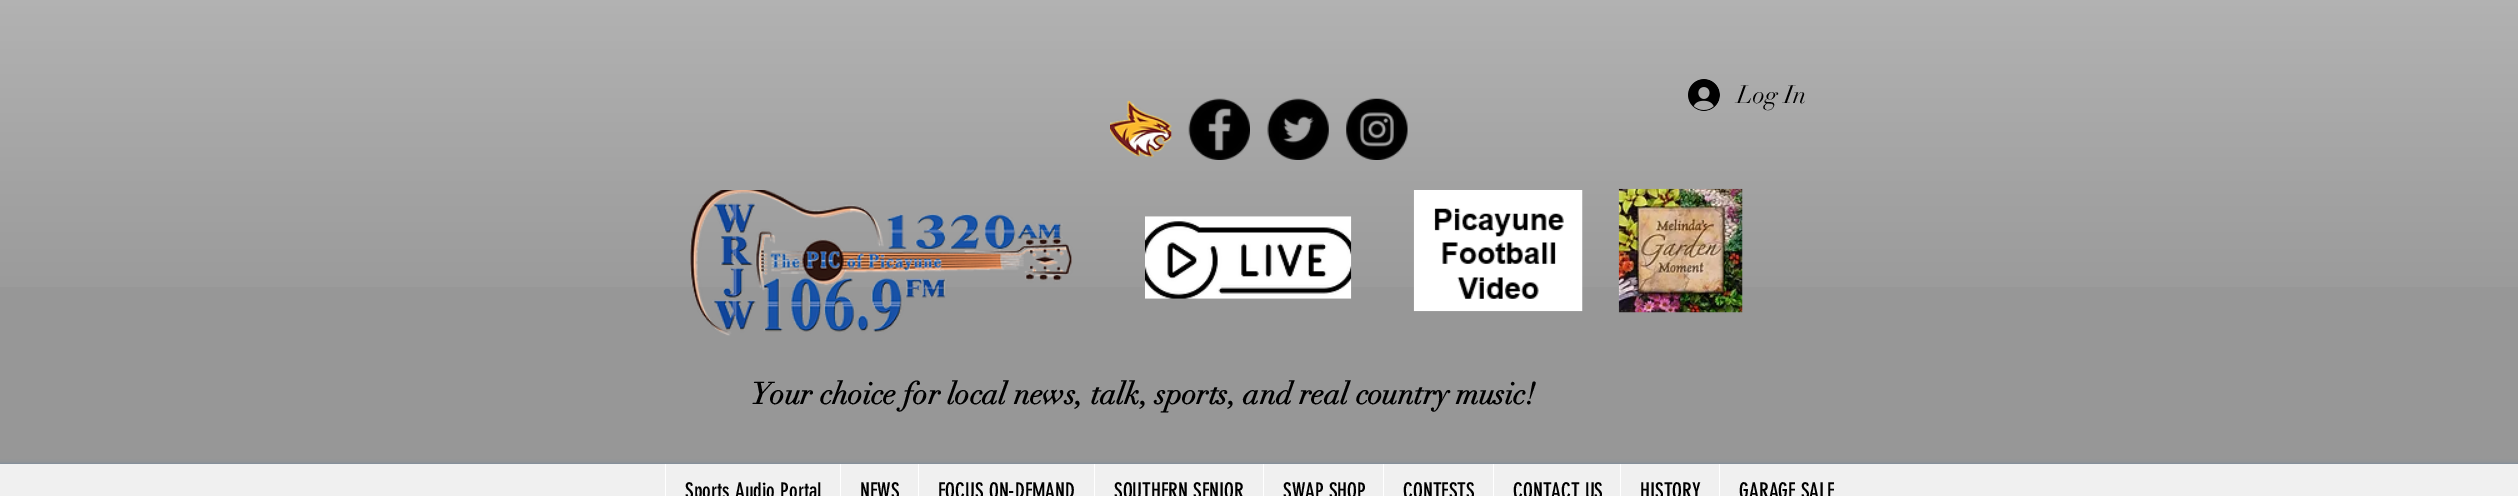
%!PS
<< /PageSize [2518 496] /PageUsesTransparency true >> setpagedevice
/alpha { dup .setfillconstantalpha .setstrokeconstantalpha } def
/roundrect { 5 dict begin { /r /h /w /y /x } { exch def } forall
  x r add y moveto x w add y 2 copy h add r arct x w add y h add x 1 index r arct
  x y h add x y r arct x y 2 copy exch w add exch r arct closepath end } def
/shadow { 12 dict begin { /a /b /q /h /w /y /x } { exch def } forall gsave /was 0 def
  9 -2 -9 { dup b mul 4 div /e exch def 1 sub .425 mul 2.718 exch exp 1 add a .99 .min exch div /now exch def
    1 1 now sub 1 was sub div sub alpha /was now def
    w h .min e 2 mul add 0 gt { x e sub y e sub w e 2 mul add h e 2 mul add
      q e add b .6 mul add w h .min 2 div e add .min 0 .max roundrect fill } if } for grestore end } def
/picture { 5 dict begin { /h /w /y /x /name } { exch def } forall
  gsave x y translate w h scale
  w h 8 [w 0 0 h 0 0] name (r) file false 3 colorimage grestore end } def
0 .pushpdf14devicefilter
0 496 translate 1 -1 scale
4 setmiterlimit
0.592 setgray
0 0 2518 496 rectfill
(img1.rgb) 0 0 2518 287 picture
(img2.rgb) 1110 100 62 58 picture
(img3.rgb) 1188 98 62 62 picture
(img4.rgb) 1267 98 62 62 picture
(img5.rgb) 1346 98 62 62 picture
(img6.rgb) 1688 79 32 32 picture
/didot-Regular [25 0 0 -25 0 0] selectfont
0 setgray
1737 103 moveto (Log In) show
(img7.rgb) 690 190 383 146 picture
(img8.rgb) 1145 216 207 83 picture
(img9.rgb) 1413 190 170 122 picture
(img10.rgb) 1618 188 125 125 picture
/didot-Bold [30 0 0 -30 0 0] selectfont
751 404 moveto (Your choice for local news, talk, sports, and real country music!) show
0.169 0.424 0.639 setrgbcolor
0 465 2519 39 0 2.5 0.6 shadow
0.941 setgray
0 464 2518 32 rectfill
1 setgray
665 464 1 32 rectfill
/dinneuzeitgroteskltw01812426-Regular [21.25 0 0 -21.25 0 0] selectfont
0 setgray
685 498 moveto (Sports Audio Portal) show
1 setgray
840 464 1 32 rectfill
0 setgray
860 498 moveto (NEWS) show
1 setgray
918 464 1 32 rectfill
0 setgray
938 498 moveto (FOCUS ON-DEMAND) show
1 setgray
1094 464 1 32 rectfill
0 setgray
1114 498 moveto (SOUTHERN SENIOR) show
1 setgray
1263 464 1 32 rectfill
0 setgray
1283 498 moveto (SWAP SHOP) show
1 setgray
1383 464 1 32 rectfill
0 setgray
1403 498 moveto (CONTESTS) show
1 setgray
1493 464 1 32 rectfill
0 setgray
1513 498 moveto (CONTACT US) show
1 setgray
1620 464 1 32 rectfill
0 setgray
1640 498 moveto (HISTORY) show
1 setgray
1719 464 1 32 rectfill
0 setgray
1739 498 moveto (GARAGE SALE) show
.poppdf14devicefilter showpage
